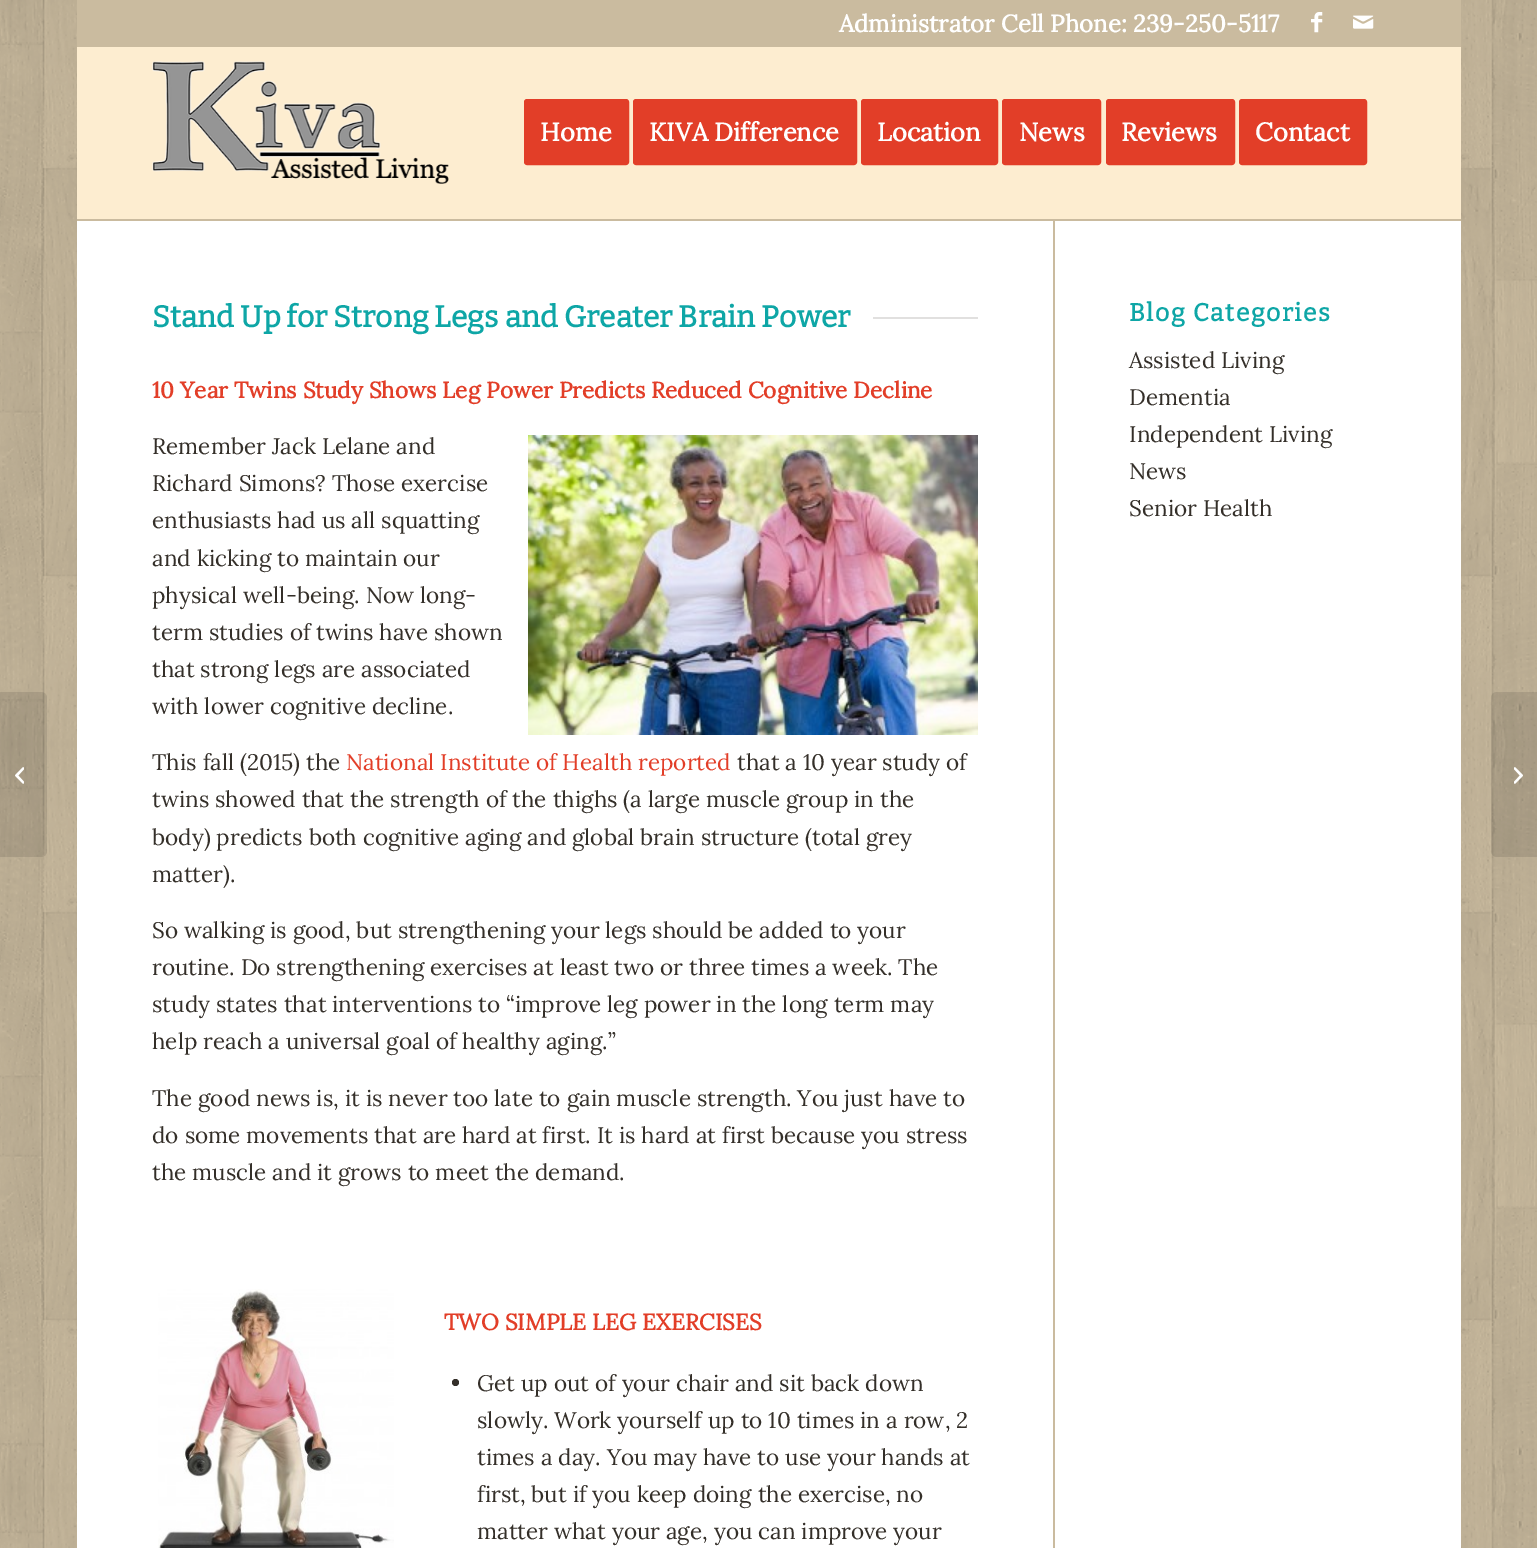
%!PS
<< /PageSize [1537 1548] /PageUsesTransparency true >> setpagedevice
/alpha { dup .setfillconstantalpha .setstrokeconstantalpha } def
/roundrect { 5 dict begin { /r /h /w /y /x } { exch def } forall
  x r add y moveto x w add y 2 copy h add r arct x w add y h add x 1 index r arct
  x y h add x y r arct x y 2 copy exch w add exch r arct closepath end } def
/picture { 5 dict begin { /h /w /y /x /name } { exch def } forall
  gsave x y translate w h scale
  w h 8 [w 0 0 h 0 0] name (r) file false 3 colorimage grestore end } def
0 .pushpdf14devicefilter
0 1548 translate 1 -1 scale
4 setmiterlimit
0.792 0.733 0.624 setrgbcolor
0 0 1537 1548 rectfill
(img1.rgb) 0 0 1537 1548 picture
77 0 1384 47 rectfill
/Lora-Bold [24 0 0 -24 0 0] selectfont
1 setgray
839 32 moveto (Administrator Cell Phone: 239-250-5117) show
(img2.rgb) 1311 12 12 21 picture
(img3.rgb) 1353 15 21 14 picture
0.792 0.733 0.624 setrgbcolor
77 219 1384 2 rectfill
0.992 0.929 0.816 setrgbcolor
77 47 1384 172 rectfill
(img4.rgb) 152 61 297 123 picture
0.886 0.243 0.157 setrgbcolor
525.5 100.5 102 63 1.5 roundrect gsave fill grestore
3 setlinewidth
stroke
/Lora-Bold [25.5 0 0 -25.5 0 0] selectfont
1 setgray
540 141 moveto (Home) show
0.886 0.243 0.157 setrgbcolor
634.5 100.5 221 63 1.5 roundrect gsave fill grestore
stroke
1 setgray
649 141 moveto (KIVA Difference) show
0.886 0.243 0.157 setrgbcolor
862.5 100.5 134 63 1.5 roundrect gsave fill grestore
stroke
1 setgray
877 141 moveto (Location) show
0.886 0.243 0.157 setrgbcolor
1003.5 100.5 96 63 1.5 roundrect gsave fill grestore
stroke
1 setgray
1019 141 moveto (News) show
0.886 0.243 0.157 setrgbcolor
1107.5 100.5 126 63 1.5 roundrect gsave fill grestore
stroke
1 setgray
1121 141 moveto (Reviews) show
0.886 0.243 0.157 setrgbcolor
1240.5 100.5 125 63 1.5 roundrect gsave fill grestore
stroke
1 setgray
1255 141 moveto (Contact) show
0.1 alpha
0 setgray
newpath 0 692 moveto 41 692 lineto 44.5 692 47 694.5 47 698 curveto 47 851 lineto 47 854.5 44.5 857 41 857 curveto 0 857 lineto closepath fill
1 alpha
(img5.rgb) 15 767 9 17 picture
1 setgray
77 221 1384 1327 rectfill
0.792 0.733 0.624 setrgbcolor
1053 221 2 1327 rectfill
/Bitter-Bold [30 0 0 -30 0 0] selectfont
0.055 0.651 0.651 setrgbcolor
152 327 moveto (Stand Up for Strong Legs and Greater Brain Power) show
0.882 0.878 0.875 setrgbcolor
873 317 105 2 rectfill
/Lora-Bold [22.5 0 0 -22.5 0 0] selectfont
0.886 0.243 0.157 setrgbcolor
152 398 moveto (10 Year Twins Study Shows Leg Power Predicts Reduced Cognitive Decline) show
/Lora-Regular [22.5 0 0 -22.5 0 0] selectfont
0.204 0.184 0.161 setrgbcolor
152 454 moveto (Remember Jack Lelane and) show
152 491 moveto (Richard Simons? Those exercise) show
152 528 moveto (enthusiasts had us all squatting) show
152 566 moveto (and kicking to maintain our) show
152 603 moveto (physical well-being. Now long-) show
152 640 moveto (term studies of twins have shown) show
152 677 moveto (that strong legs are associated) show
152 714 moveto (with lower cognitive decline.) show
(img6.rgb) 528 435 450 300 picture
152 770 moveto (This fall \(2015\) the) show
0.886 0.243 0.157 setrgbcolor
346 770 moveto (National Institute of Health reported) show
0.204 0.184 0.161 setrgbcolor
737 770 moveto (that a 10 year study of) show
152 807 moveto (twins showed that the strength of the thighs \(a large muscle group in the) show
152 845 moveto (body\) predicts both cognitive aging and global brain structure \(total grey) show
152 882 moveto (matter\).) show
152 938 moveto (So walking is good, but strengthening your legs should be added to your) show
152 975 moveto (routine. Do strengthening exercises at least two or three times a week. The) show
152 1012 moveto (study states that interventions to “improve leg power in the long term may) show
152 1049 moveto (help reach a universal goal of healthy aging.”) show
152 1106 moveto (The good news is, it is never too late to gain muscle strength. You just have to) show
152 1143 moveto (do some movements that are hard at first. It is hard at first because you stress) show
152 1180 moveto (the muscle and it grows to meet the demand.) show
(img7.rgb) 158 1289 236 259 picture
/Lora-Bold [22.5 0 0 -22.5 0 0] selectfont
0.886 0.243 0.157 setrgbcolor
444 1330 moveto (TWO SIMPLE LEG EXERCISES) show
0.204 0.184 0.161 setrgbcolor
newpath 455.5 1382.5 3.5 0 360 arc closepath fill
/Lora-Regular [22.5 0 0 -22.5 0 0] selectfont
477 1391 moveto (Get up out of your chair and sit back down) show
477 1428 moveto (slowly. Work yourself up to 10 times in a row, 2) show
477 1465 moveto (times a day. You may have to use your hands at) show
477 1502 moveto (first, but if you keep doing the exercise, no) show
477 1539 moveto (matter what your age, you can improve your) show
/Bitter-Bold [24.75 0 0 -24.75 0 0] selectfont
0.055 0.651 0.651 setrgbcolor
1129 321 moveto 1.5 0 (Blog Categories) ashow
/Lora-Regular [22.5 0 0 -22.5 0 0] selectfont
0.204 0.184 0.161 setrgbcolor
1129 368 moveto (Assisted Living) show
1129 405 moveto (Dementia) show
1129 442 moveto (Independent Living) show
1129 479 moveto (News) show
1129 516 moveto (Senior Health) show
0.1 alpha
0 setgray
newpath 1497 692 moveto 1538 692 lineto 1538 857 lineto 1497 857 lineto 1493.5 857 1491 854.5 1491 851 curveto 1491 698 lineto 1491 694.5 1493.5 692 1497 692 curveto closepath fill
1 alpha
(img8.rgb) 1514 767 9 17 picture
.poppdf14devicefilter showpage
